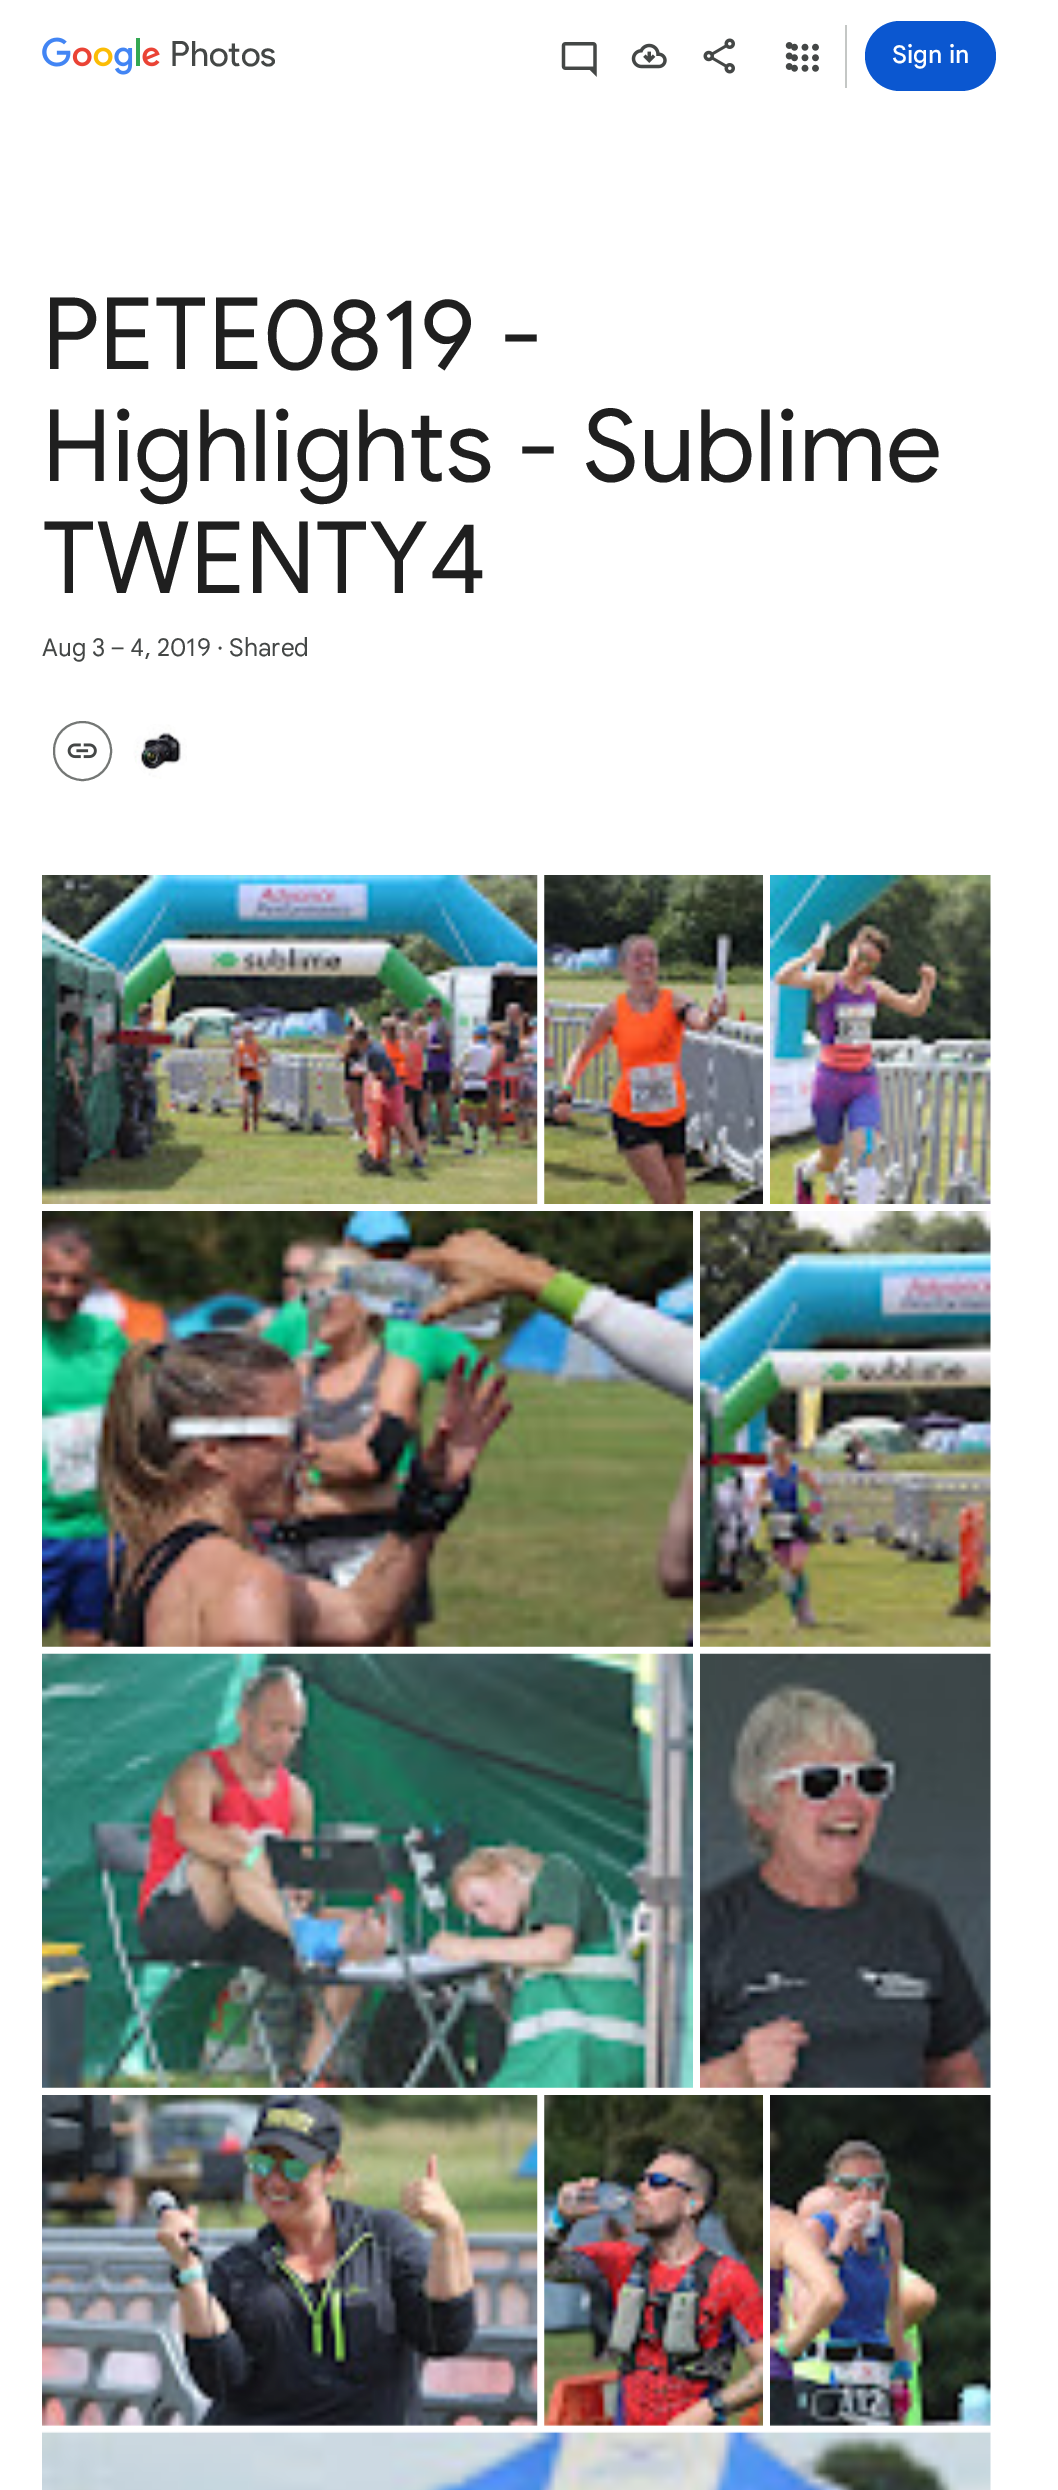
%!PS
<< /PageSize [1058 2490] >> setpagedevice
/roundrect { 5 dict begin { /r /h /w /y /x } { exch def } forall
  x r add y moveto x w add y 2 copy h add r arct x w add y h add x 1 index r arct
  x y h add x y r arct x y 2 copy exch w add exch r arct closepath end } def
/picture { 5 dict begin { /h /w /y /x /name } { exch def } forall
  gsave x y translate w h scale
  w h 8 [w 0 0 h 0 0] name (r) file false 3 colorimage grestore end } def
0 2490 translate 1 -1 scale
4 setmiterlimit
1 setgray
0 0 1058 2490 rectfill
(img1.rgb) 42 37 118 38 picture
/ProductSans-Regular [35 0 0 -35 0 0] selectfont
0.267 0.278 0.275 setrgbcolor
170 66 moveto (Photos) show
(img2.rgb) 561 42 36 35 picture
(img3.rgb) 631 43 36 26 picture
(img4.rgb) 703 38 32 36 picture
(img5.rgb) 785 42 8 28 picture
0.769 0.78 0.773 setrgbcolor
845 25 2 63 rectfill
/GoogleSans-Regular [99.75 0 0 -99.75 0 0] selectfont
0.122 setgray
42 369 moveto (PETE0819 -) show
42 481 moveto (Highlights - Sublime) show
42 593 moveto (TWENTY4) show
/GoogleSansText-Regular [24.5 0 0 -24.5 0 0] selectfont
0.267 0.278 0.275 setrgbcolor
42 656 moveto (Aug 3 – 4, 2019 · Shared) show
0.455 0.467 0.459 setrgbcolor
2 setlinewidth
54 722 57 58 28.5 roundrect stroke
(img6.rgb) 67 743 30 16 picture
(img7.rgb) 133 724 54 55 picture
(img8.rgb) 42 875 496 329 picture
(img9.rgb) 544 875 219 329 picture
(img10.rgb) 770 875 221 329 picture
(img11.rgb) 42 1211 651 436 picture
(img12.rgb) 700 1211 291 436 picture
(img13.rgb) 42 1653 651 435 picture
(img14.rgb) 700 1653 291 435 picture
(img15.rgb) 42 2095 496 331 picture
(img16.rgb) 544 2095 219 331 picture
(img17.rgb) 770 2095 221 331 picture
(img18.rgb) 42 2431 949 59 picture
(img19.rgb) 791 43 28 29 picture
0.043 0.341 0.816 setrgbcolor
865 21 131 70 35 roundrect fill
/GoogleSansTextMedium-Medium [24.5 0 0 -24.5 0 0] selectfont
1 setgray
892 63 moveto (Sign in) show
showpage
